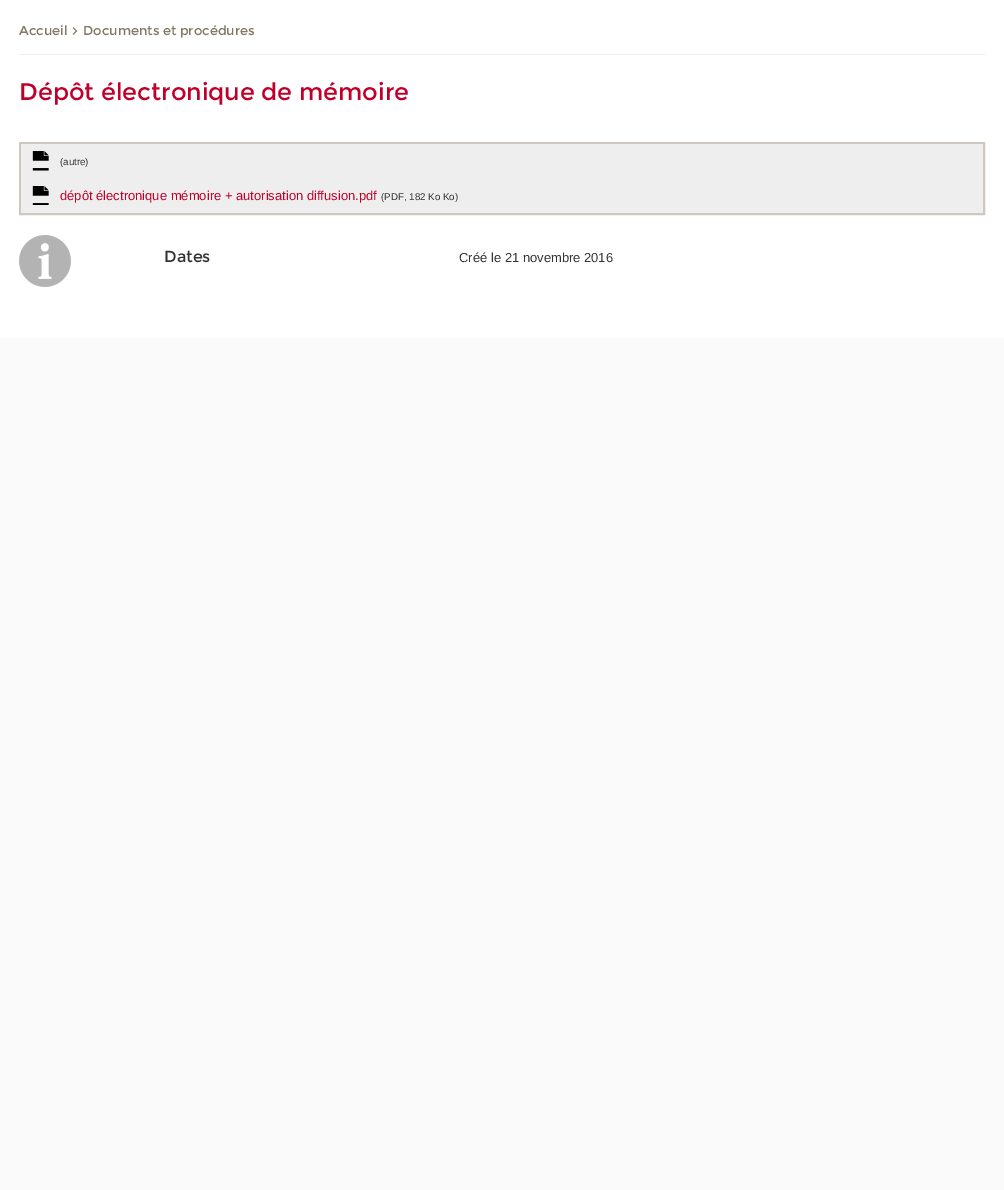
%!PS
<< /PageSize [1004 1190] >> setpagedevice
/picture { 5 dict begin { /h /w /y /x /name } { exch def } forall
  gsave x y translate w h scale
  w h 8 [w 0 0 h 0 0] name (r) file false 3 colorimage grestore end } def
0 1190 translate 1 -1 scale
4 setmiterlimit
0.98 setgray
0 0 1004 1190 rectfill
1 setgray
0 0 1004 338 rectfill
0.933 setgray
19 54 966 1 rectfill
/Montserrat-Regular [13 0 0 -13 0 0] selectfont
0.522 0.467 0.38 setrgbcolor
19 35 moveto (Accueil) show
(img1.rgb) 72 27 6 8 picture
83 35 moveto (Documents et procédures) show
/Montserrat-Regular [24 0 0 -24 0 0] selectfont
0.757 0 0.165 setrgbcolor
19 100 moveto (Dépôt électronique de mémoire) show
0.812 0.784 0.753 setrgbcolor
2 setlinewidth
20 143 964 71 rectstroke
0.933 setgray
21 144 962 69 rectfill
(img2.rgb) 32 151 17 20 picture
/LiberationSans-Regular [9.75 0 0 -9.75 0 0] selectfont
0.2 setgray
60 165 moveto (\(autre\)) show
(img3.rgb) 32 186 17 19 picture
/LiberationSans-Regular [13 0 0 -13 0 0] selectfont
0.757 0 0.165 setrgbcolor
60 200 moveto (dépôt électronique mémoire + autorisation diffusion.pdf) show
/LiberationSans-Regular [9.75 0 0 -9.75 0 0] selectfont
0.2 setgray
381 200 moveto (\(PDF, 182 Ko Ko\)) show
(img4.rgb) 19 235 52 52 picture
/Montserrat-Regular [16 0 0 -16 0 0] selectfont
164 262 moveto (Dates) show
/LiberationSans-Regular [13 0 0 -13 0 0] selectfont
459 262 moveto (Créé le 21 novembre 2016) show
showpage
